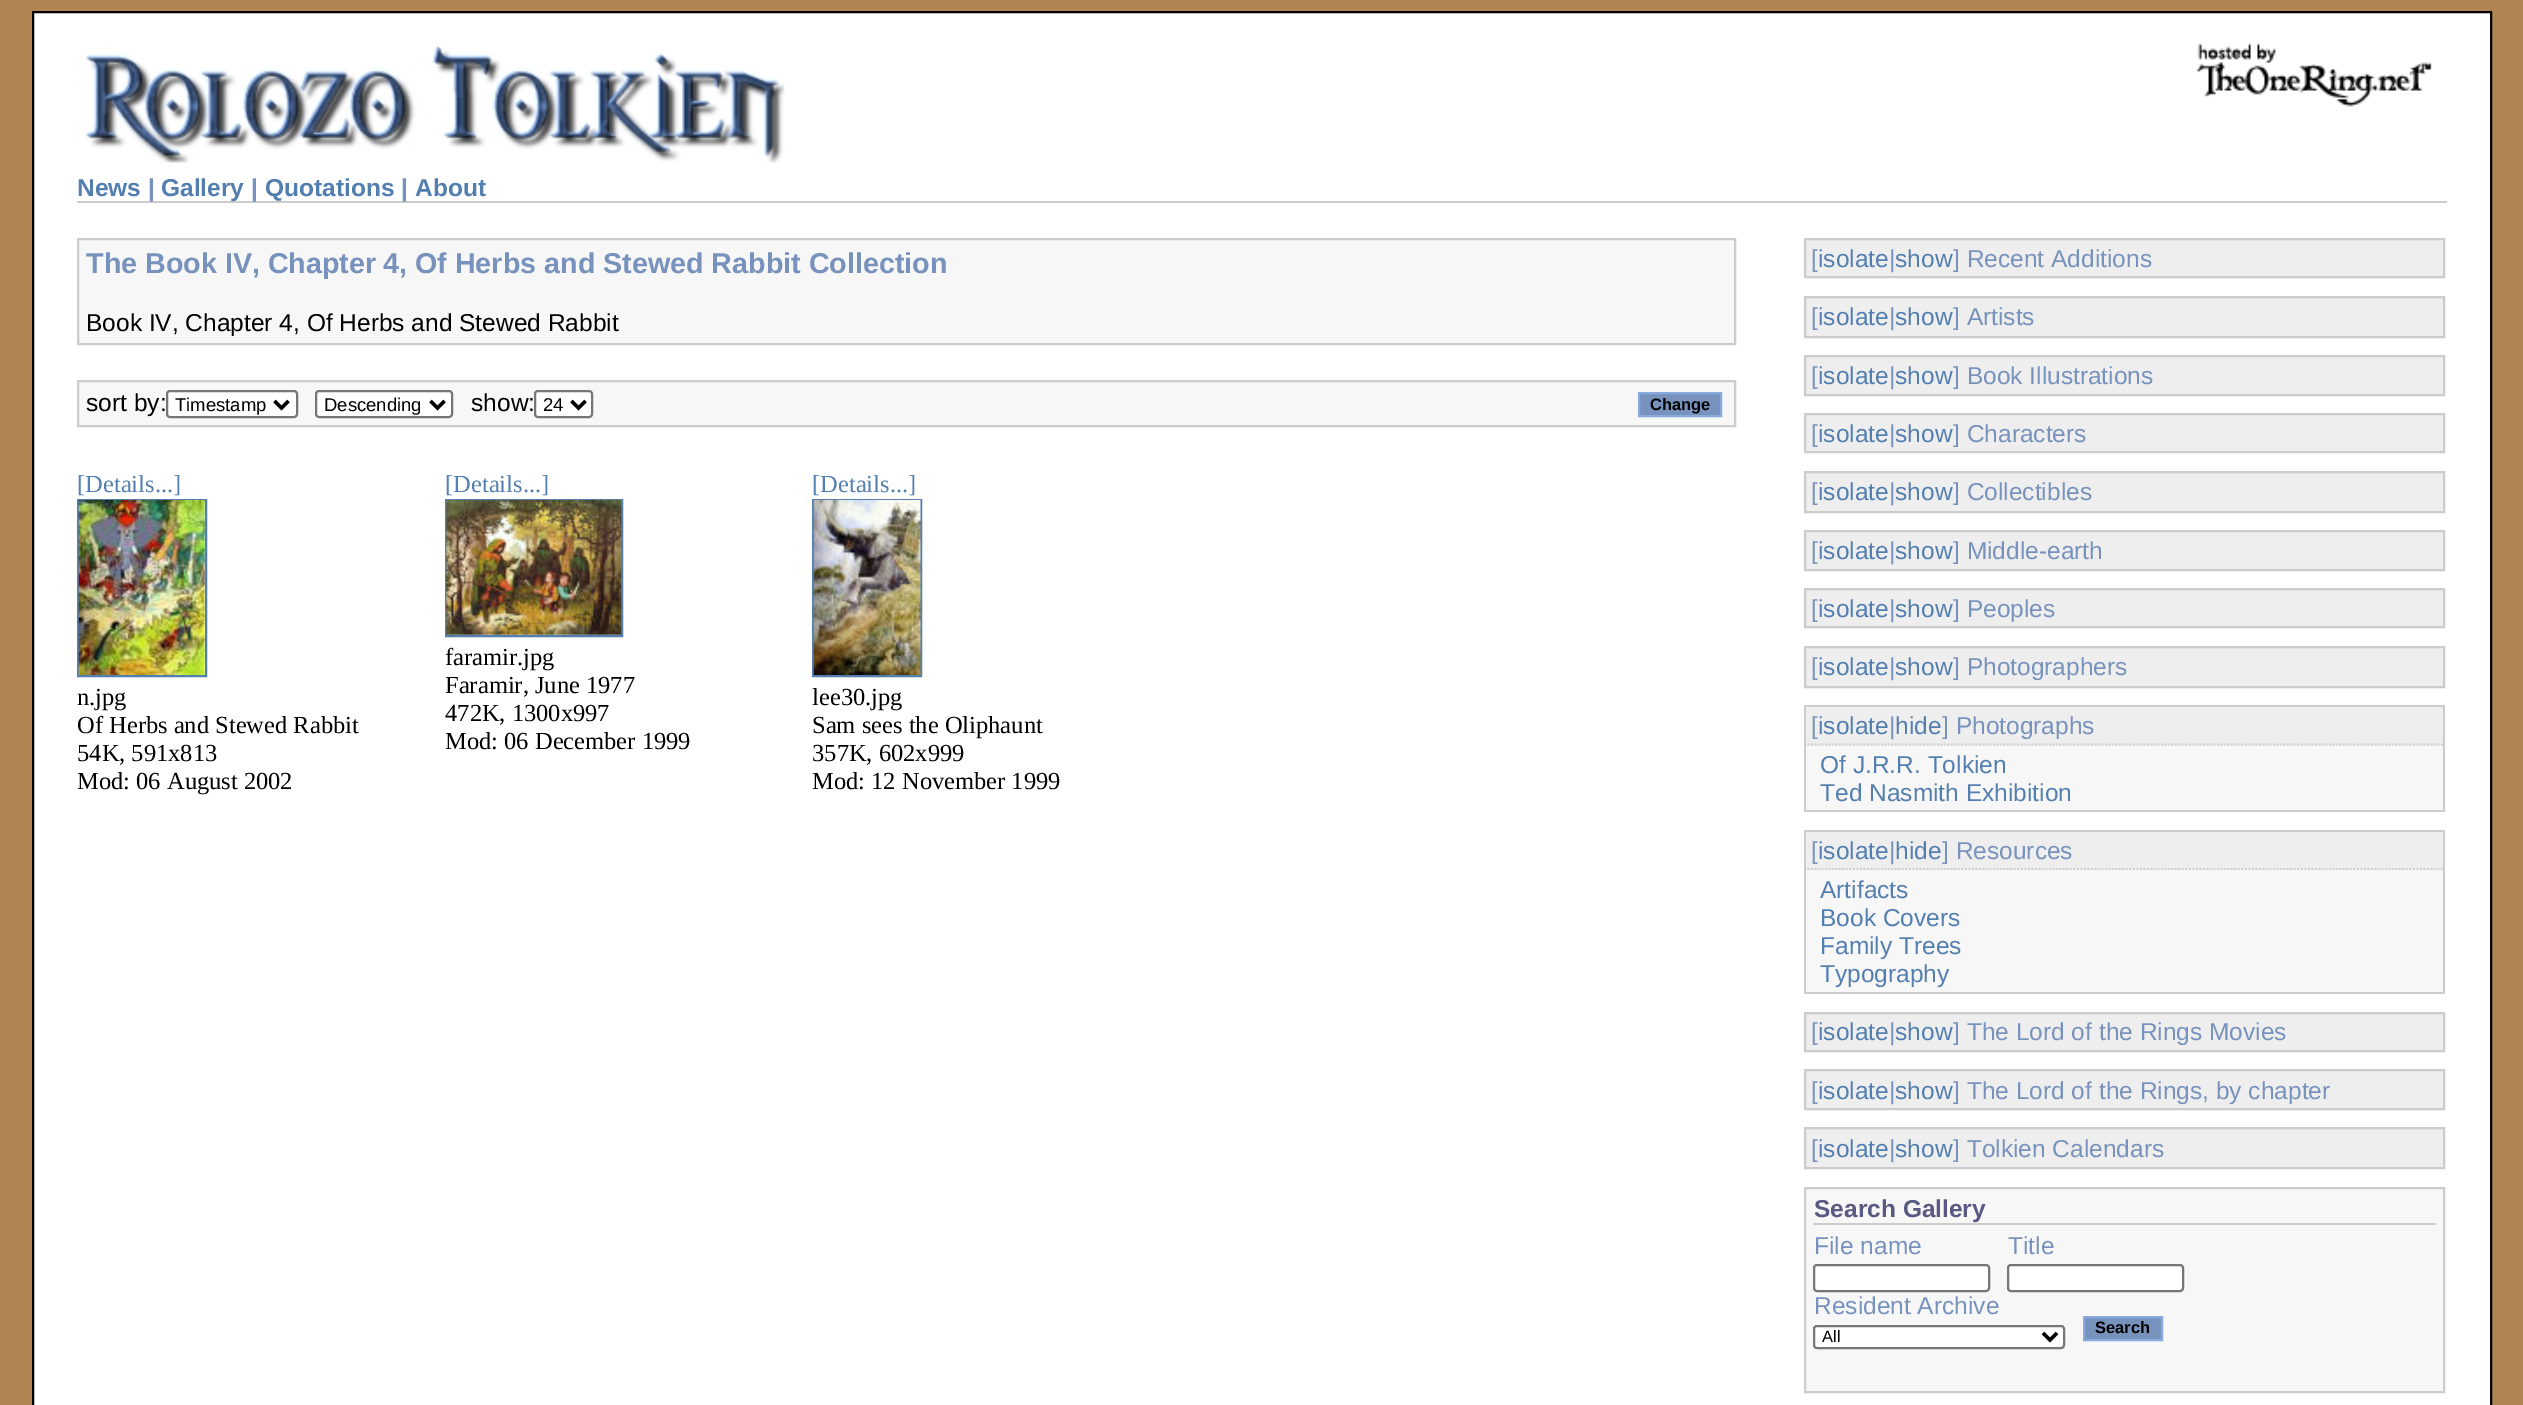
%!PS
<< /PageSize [2523 1405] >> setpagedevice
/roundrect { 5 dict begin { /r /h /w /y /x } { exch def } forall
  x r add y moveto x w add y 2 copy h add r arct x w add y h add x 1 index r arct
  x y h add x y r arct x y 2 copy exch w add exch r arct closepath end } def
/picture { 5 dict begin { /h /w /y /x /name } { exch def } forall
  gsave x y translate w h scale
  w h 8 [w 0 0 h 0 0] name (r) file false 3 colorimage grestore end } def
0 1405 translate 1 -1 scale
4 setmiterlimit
0.69 0.522 0.325 setrgbcolor
0 0 2523 1405 rectfill
1 setgray
newpath 33 12 moveto 2491 12 lineto 2491 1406 lineto 33 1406 lineto closepath gsave fill grestore
0 setgray
2 setlinewidth
stroke
(img1.rgb) 85 45 700 118 picture
(img2.rgb) 2196 43 236 64 picture
0.8 setgray
77 201 2370 2 rectfill
/LiberationSans-Bold [24.5 0 0 -24.5 0 0] selectfont
0.325 0.494 0.69 setrgbcolor
77 196 moveto (News) show
0.467 0.573 0.737 setrgbcolor
148 196 moveto (|) show
0.325 0.494 0.69 setrgbcolor
161 196 moveto (Gallery) show
0.467 0.573 0.737 setrgbcolor
251 196 moveto (|) show
0.325 0.494 0.69 setrgbcolor
265 196 moveto (Quotations) show
0.467 0.573 0.737 setrgbcolor
401 196 moveto (|) show
0.325 0.494 0.69 setrgbcolor
415 196 moveto (About) show
0.969 setgray
newpath 78 239 moveto 1735 239 lineto 1735 344 lineto 78 344 lineto closepath gsave fill grestore
0.8 setgray
stroke
/LiberationSans-Bold [28.7 0 0 -28.7 0 0] selectfont
0.467 0.573 0.737 setrgbcolor
86 273 moveto (The Book IV, Chapter) show
383 273 moveto (4, Of Herbs and Stewed Rabbit Collection) show
/LiberationSans-Regular [24.5 0 0 -24.5 0 0] selectfont
0 setgray
86 331 moveto (Book IV, Chapter 4, Of Herbs and Stewed Rabbit) show
0.969 setgray
newpath 78 381 moveto 1735 381 lineto 1735 426 lineto 78 426 lineto closepath gsave fill grestore
0.8 setgray
stroke
0 setgray
86 411 moveto (sort by:) show
1 setgray
167 391 130 26 3 roundrect gsave fill grestore
0.463 setgray
stroke
0 setgray
3.5 setlinewidth
newpath 274.5 401 moveto 281.5 408 lineto 288.5 401 lineto stroke
/LiberationSans-Regular [18.5 0 0 -18.5 0 0] selectfont
175 411 moveto (Timestamp) show
1 setgray
316 391 136 26 3 roundrect gsave fill grestore
0.463 setgray
2 setlinewidth
stroke
0 setgray
3.5 setlinewidth
newpath 430.5 401 moveto 437.5 408 lineto 444.5 401 lineto stroke
324 411 moveto (Descending) show
/LiberationSans-Regular [24.5 0 0 -24.5 0 0] selectfont
471 411 moveto (show:) show
1 setgray
535 391 57 26 3 roundrect gsave fill grestore
0.463 setgray
2 setlinewidth
stroke
0 setgray
3.5 setlinewidth
newpath 571.5 401 moveto 578.5 408 lineto 585.5 401 lineto stroke
/LiberationSans-Regular [18.5 0 0 -18.5 0 0] selectfont
543 411 moveto (24) show
0.467 0.573 0.737 setrgbcolor
newpath 1639 393 moveto 1721 393 lineto 1721 416 lineto 1639 416 lineto closepath gsave fill grestore
0.533 0.667 0.867 setrgbcolor
2 setlinewidth
stroke
/LiberationSans-Bold [16.5 0 0 -16.5 0 0] selectfont
0 setgray
1650 410 moveto (Change) show
/LiberationSerif-Regular [24.5 0 0 -24.5 0 0] selectfont
0.325 0.494 0.69 setrgbcolor
77 492 moveto ([Details...]) show
78 500 128 176 rectstroke
(img3.rgb) 78 500 127 175 picture
0 setgray
77 705 moveto (n.jpg) show
77 733 moveto (Of Herbs and Stewed Rabbit) show
77 761 moveto (54K, 591x813) show
77 789 moveto (Mod: 06 August 2002) show
0.325 0.494 0.69 setrgbcolor
445 492 moveto ([Details...]) show
446 500 176 136 rectstroke
(img4.rgb) 446 500 176 135 picture
0 setgray
445 665 moveto (faramir.jpg) show
445 693 moveto (Faramir, June 1977) show
445 721 moveto (472K, 1300x997) show
445 749 moveto (Mod: 06 December 1999) show
0.325 0.494 0.69 setrgbcolor
812 492 moveto ([Details...]) show
813 500 108 176 rectstroke
(img5.rgb) 813 500 108 175 picture
0 setgray
812 705 moveto (lee30.jpg) show
812 733 moveto (Sam sees the Oliphaunt) show
812 761 moveto (357K, 602x999) show
812 789 moveto (Mod: 12 November 1999) show
0.933 setgray
newpath 1805 239 moveto 2444 239 lineto 2444 277 lineto 1805 277 lineto closepath gsave fill grestore
0.8 setgray
stroke
/LiberationSans-Regular [24.5 0 0 -24.5 0 0] selectfont
0.467 0.573 0.737 setrgbcolor
1811 267 moveto ([) show
0.325 0.494 0.69 setrgbcolor
1818 267 moveto (isolate) show
0.467 0.573 0.737 setrgbcolor
1889 267 moveto (|) show
0.325 0.494 0.69 setrgbcolor
1895 267 moveto (show) show
0.467 0.573 0.737 setrgbcolor
1953 267 moveto (] Recent Additions) show
0.933 setgray
newpath 1805 297 moveto 2444 297 lineto 2444 337 lineto 1805 337 lineto closepath gsave fill grestore
0.8 setgray
stroke
0.467 0.573 0.737 setrgbcolor
1811 325 moveto ([) show
0.325 0.494 0.69 setrgbcolor
1818 325 moveto (isolate) show
0.467 0.573 0.737 setrgbcolor
1889 325 moveto (|) show
0.325 0.494 0.69 setrgbcolor
1895 325 moveto (show) show
0.467 0.573 0.737 setrgbcolor
1953 325 moveto (] Artists) show
0.933 setgray
newpath 1805 356 moveto 2444 356 lineto 2444 395 lineto 1805 395 lineto closepath gsave fill grestore
0.8 setgray
stroke
0.467 0.573 0.737 setrgbcolor
1811 384 moveto ([) show
0.325 0.494 0.69 setrgbcolor
1818 384 moveto (isolate) show
0.467 0.573 0.737 setrgbcolor
1889 384 moveto (|) show
0.325 0.494 0.69 setrgbcolor
1895 384 moveto (show) show
0.467 0.573 0.737 setrgbcolor
1953 384 moveto (] Book Illustrations) show
0.933 setgray
newpath 1805 414 moveto 2444 414 lineto 2444 452 lineto 1805 452 lineto closepath gsave fill grestore
0.8 setgray
stroke
0.467 0.573 0.737 setrgbcolor
1811 442 moveto ([) show
0.325 0.494 0.69 setrgbcolor
1818 442 moveto (isolate) show
0.467 0.573 0.737 setrgbcolor
1889 442 moveto (|) show
0.325 0.494 0.69 setrgbcolor
1895 442 moveto (show) show
0.467 0.573 0.737 setrgbcolor
1953 442 moveto (] Characters) show
0.933 setgray
newpath 1805 472 moveto 2444 472 lineto 2444 512 lineto 1805 512 lineto closepath gsave fill grestore
0.8 setgray
stroke
0.467 0.573 0.737 setrgbcolor
1811 500 moveto ([) show
0.325 0.494 0.69 setrgbcolor
1818 500 moveto (isolate) show
0.467 0.573 0.737 setrgbcolor
1889 500 moveto (|) show
0.325 0.494 0.69 setrgbcolor
1895 500 moveto (show) show
0.467 0.573 0.737 setrgbcolor
1953 500 moveto (] Collectibles) show
0.933 setgray
newpath 1805 531 moveto 2444 531 lineto 2444 570 lineto 1805 570 lineto closepath gsave fill grestore
0.8 setgray
stroke
0.467 0.573 0.737 setrgbcolor
1811 559 moveto ([) show
0.325 0.494 0.69 setrgbcolor
1818 559 moveto (isolate) show
0.467 0.573 0.737 setrgbcolor
1889 559 moveto (|) show
0.325 0.494 0.69 setrgbcolor
1895 559 moveto (show) show
0.467 0.573 0.737 setrgbcolor
1953 559 moveto (] Middle-earth) show
0.933 setgray
newpath 1805 589 moveto 2444 589 lineto 2444 627 lineto 1805 627 lineto closepath gsave fill grestore
0.8 setgray
stroke
0.467 0.573 0.737 setrgbcolor
1811 617 moveto ([) show
0.325 0.494 0.69 setrgbcolor
1818 617 moveto (isolate) show
0.467 0.573 0.737 setrgbcolor
1889 617 moveto (|) show
0.325 0.494 0.69 setrgbcolor
1895 617 moveto (show) show
0.467 0.573 0.737 setrgbcolor
1953 617 moveto (] Peoples) show
0.933 setgray
newpath 1805 647 moveto 2444 647 lineto 2444 687 lineto 1805 687 lineto closepath gsave fill grestore
0.8 setgray
stroke
0.467 0.573 0.737 setrgbcolor
1811 675 moveto ([) show
0.325 0.494 0.69 setrgbcolor
1818 675 moveto (isolate) show
0.467 0.573 0.737 setrgbcolor
1889 675 moveto (|) show
0.325 0.494 0.69 setrgbcolor
1895 675 moveto (show) show
0.467 0.573 0.737 setrgbcolor
1953 675 moveto (] Photographers) show
0.933 setgray
1806 707 637 39 rectfill
0.8 setgray
1804 705 641 2 rectfill
2443 705 2 107 rectfill
1.8 setlinewidth
[1.75 1.75] 0 setdash
newpath 1804 744.5 moveto 2445 744.5 lineto stroke
1804 705 2 41 rectfill
0.467 0.573 0.737 setrgbcolor
1811 734 moveto ([) show
0.325 0.494 0.69 setrgbcolor
1818 734 moveto (isolate) show
0.467 0.573 0.737 setrgbcolor
1889 734 moveto (|) show
0.325 0.494 0.69 setrgbcolor
1895 734 moveto (hide) show
0.467 0.573 0.737 setrgbcolor
1942 734 moveto (] Photographs) show
0.969 setgray
1806 746 637 64 rectfill
0.8 setgray
1804 810 641 2 rectfill
1804 746 2 66 rectfill
0.325 0.494 0.69 setrgbcolor
1820 773 moveto (Of J.R.R. Tolkien) show
1820 801 moveto (Ted Nasmith Exhibition) show
0.933 setgray
1806 832 637 38 rectfill
0.8 setgray
1804 830 641 2 rectfill
2443 830 2 164 rectfill
newpath 1804 869 moveto 2445 869 lineto stroke
1804 830 2 40 rectfill
0.467 0.573 0.737 setrgbcolor
1811 859 moveto ([) show
0.325 0.494 0.69 setrgbcolor
1818 859 moveto (isolate) show
0.467 0.573 0.737 setrgbcolor
1889 859 moveto (|) show
0.325 0.494 0.69 setrgbcolor
1895 859 moveto (hide) show
0.467 0.573 0.737 setrgbcolor
1942 859 moveto (] Resources) show
0.969 setgray
1806 870 637 122 rectfill
0.8 setgray
1804 992 641 2 rectfill
1804 870 2 124 rectfill
0.325 0.494 0.69 setrgbcolor
1820 898 moveto (Artifacts) show
1820 926 moveto (Book Covers) show
1820 954 moveto (Family Trees) show
1820 982 moveto (Typography) show
0.933 setgray
newpath 1805 1013 moveto 2444 1013 lineto 2444 1051 lineto 1805 1051 lineto closepath gsave fill grestore
0.8 setgray
2 setlinewidth
[] 0 setdash
stroke
0.467 0.573 0.737 setrgbcolor
1811 1040 moveto ([) show
0.325 0.494 0.69 setrgbcolor
1818 1040 moveto (isolate) show
0.467 0.573 0.737 setrgbcolor
1889 1040 moveto (|) show
0.325 0.494 0.69 setrgbcolor
1895 1040 moveto (show) show
0.467 0.573 0.737 setrgbcolor
1953 1040 moveto (] The Lord of the Rings Movies) show
0.933 setgray
newpath 1805 1070 moveto 2444 1070 lineto 2444 1109 lineto 1805 1109 lineto closepath gsave fill grestore
0.8 setgray
stroke
0.467 0.573 0.737 setrgbcolor
1811 1099 moveto ([) show
0.325 0.494 0.69 setrgbcolor
1818 1099 moveto (isolate) show
0.467 0.573 0.737 setrgbcolor
1889 1099 moveto (|) show
0.325 0.494 0.69 setrgbcolor
1895 1099 moveto (show) show
0.467 0.573 0.737 setrgbcolor
1953 1099 moveto (] The Lord of the Rings, by chapter) show
0.933 setgray
newpath 1805 1128 moveto 2444 1128 lineto 2444 1168 lineto 1805 1168 lineto closepath gsave fill grestore
0.8 setgray
stroke
0.467 0.573 0.737 setrgbcolor
1811 1157 moveto ([) show
0.325 0.494 0.69 setrgbcolor
1818 1157 moveto (isolate) show
0.467 0.573 0.737 setrgbcolor
1889 1157 moveto (|) show
0.325 0.494 0.69 setrgbcolor
1895 1157 moveto (show) show
0.467 0.573 0.737 setrgbcolor
1953 1157 moveto (] Tolkien Calendars) show
0.969 setgray
newpath 1805 1188 moveto 2444 1188 lineto 2444 1392 lineto 1805 1392 lineto closepath gsave fill grestore
0.8 setgray
stroke
1813 1223 623 2 rectfill
/LiberationSans-Bold [24.5 0 0 -24.5 0 0] selectfont
0.349 0.349 0.514 setrgbcolor
1814 1217 moveto (Search Gallery) show
/LiberationSans-Regular [24.5 0 0 -24.5 0 0] selectfont
0.467 0.573 0.737 setrgbcolor
1814 1254 moveto (File name) show
1 setgray
1814 1265 175 26 3 roundrect gsave fill grestore
0.463 setgray
stroke
0.467 0.573 0.737 setrgbcolor
2008 1254 moveto (Title) show
1 setgray
2008 1265 175 26 3 roundrect gsave fill grestore
0.463 setgray
stroke
0.467 0.573 0.737 setrgbcolor
1814 1314 moveto (Resident Archive) show
1 setgray
1814 1326 250 22 3 roundrect gsave fill grestore
0.463 setgray
stroke
0 setgray
3.5 setlinewidth
newpath 2043 1333 moveto 2050 1340 lineto 2057 1333 lineto stroke
/LiberationSans-Regular [16.5 0 0 -16.5 0 0] selectfont
1822 1342 moveto (All) show
0.467 0.573 0.737 setrgbcolor
newpath 2084 1317 moveto 2162 1317 lineto 2162 1340 lineto 2084 1340 lineto closepath gsave fill grestore
0.533 0.667 0.867 setrgbcolor
2 setlinewidth
stroke
/LiberationSans-Bold [16.5 0 0 -16.5 0 0] selectfont
0 setgray
2095 1333 moveto (Search) show
showpage
